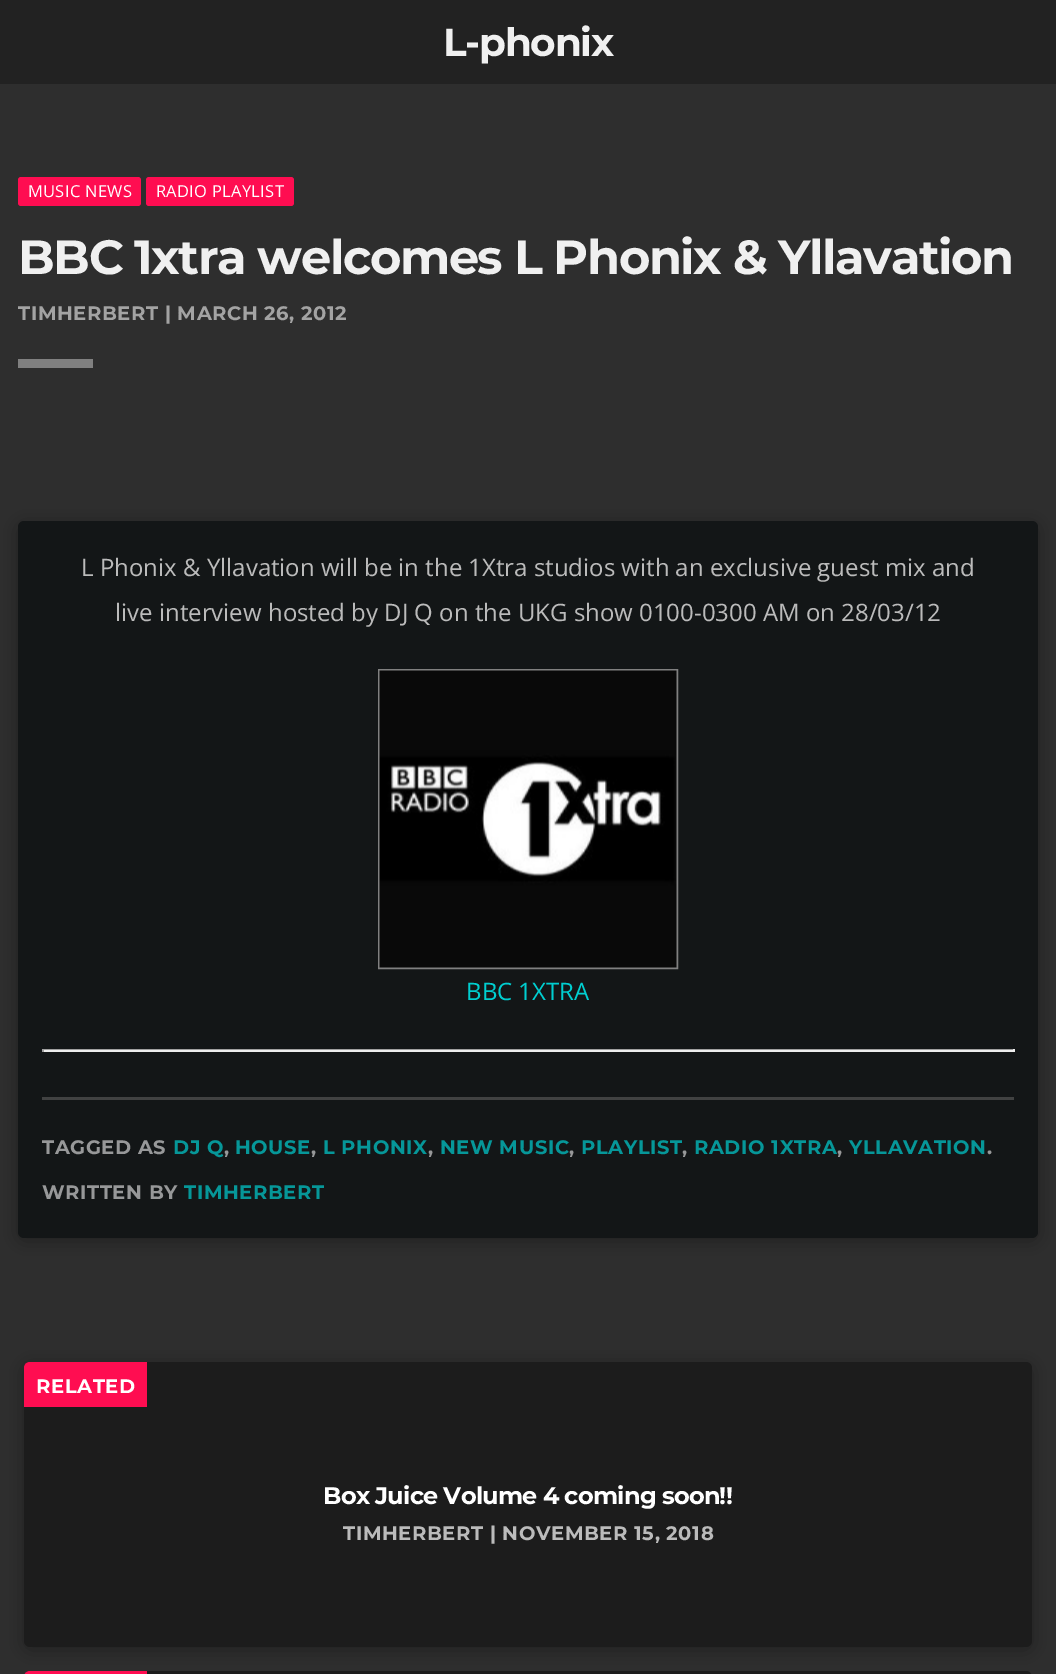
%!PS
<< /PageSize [1056 1674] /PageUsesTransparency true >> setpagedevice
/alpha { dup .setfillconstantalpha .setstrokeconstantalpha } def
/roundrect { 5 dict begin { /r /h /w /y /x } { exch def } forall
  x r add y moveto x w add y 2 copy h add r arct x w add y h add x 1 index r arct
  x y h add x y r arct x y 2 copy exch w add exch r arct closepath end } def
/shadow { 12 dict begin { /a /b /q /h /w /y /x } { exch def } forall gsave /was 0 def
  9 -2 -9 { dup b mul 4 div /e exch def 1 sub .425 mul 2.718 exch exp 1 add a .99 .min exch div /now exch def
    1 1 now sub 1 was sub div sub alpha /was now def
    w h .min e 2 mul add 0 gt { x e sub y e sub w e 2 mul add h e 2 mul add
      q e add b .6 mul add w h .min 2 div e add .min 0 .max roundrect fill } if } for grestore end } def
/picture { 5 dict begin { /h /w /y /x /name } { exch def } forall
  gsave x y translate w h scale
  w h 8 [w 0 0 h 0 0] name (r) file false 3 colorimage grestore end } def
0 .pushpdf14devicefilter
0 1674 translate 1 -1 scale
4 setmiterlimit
0.18 setgray
0 0 1056 1674 rectfill
0.133 setgray
0 0 1056 84 rectfill
/Montserrat-Bold [39 0 0 -39 0 0] selectfont
0.941 setgray
443 56 moveto -1.25 0 (L-phonix) ashow
1 0.051 0.318 setrgbcolor
18 177 123 29 3 roundrect fill
/OpenSans-Regular [16.5 0 0 -16.5 0 0] selectfont
1 setgray
28 197 moveto 0.3 0 (MUSIC NEWS) ashow
1 0.051 0.318 setrgbcolor
146 177 148 29 3 roundrect fill
1 setgray
156 197 moveto 0.3 0 (RADIO PLAYLIST) ashow
/Montserrat-Bold [48 0 0 -48 0 0] selectfont
0.941 setgray
18 274 moveto -1.45 0 (BBC 1xtra welcomes L Phonix & Yllavation) ashow
/Montserrat-Bold [19.5 0 0 -19.5 0 0] selectfont
0.639 setgray
18 320 moveto 0.6 0 (TIMHERBERT | MARCH 26, 2012) ashow
0.502 setgray
18 359 75 9 rectfill
0 setgray
18 524 1020 717 6 9 0.3 shadow
0.075 0.086 0.09 setrgbcolor
18 521 1020 717 6 roundrect fill
/OpenSans-Regular [24 0 0 -24 0 0] selectfont
0.733 setgray
81 576 moveto (L Phonix & Yllavation will be in the 1Xtra studios with an exclusive guest mix and) show
115 621 moveto (live interview hosted by DJ Q on the UKG show 0100-0300 AM on 28/03/12) show
0.502 setgray
2 setlinewidth
379 670 298 298 rectstroke
(img1.rgb) 379 670 298 298 picture
0 0.808 0.816 setrgbcolor
466 1000 moveto (BBC 1XTRA) show
0.624 setgray
42 1049 972 1 rectfill
0.933 setgray
1013 1049 2 3 rectfill
42 1050 972 2 rectfill
0.624 setgray
42 1049 2 3 rectfill
0.255 0.259 0.259 setrgbcolor
42 1097 972 3 rectfill
/Montserrat-Bold [19.5 0 0 -19.5 0 0] selectfont
0.592 0.596 0.6 setrgbcolor
42 1154 moveto 0.6 0 (TAGGED AS) ashow
0.024 0.592 0.6 setrgbcolor
173 1154 moveto 0.6 0 (DJ Q) ashow
0.592 0.596 0.6 setrgbcolor
224 1154 moveto 0.6 0 (,) ashow
0.024 0.592 0.6 setrgbcolor
235 1154 moveto 0.6 0 (HOUSE) ashow
0.592 0.596 0.6 setrgbcolor
311 1154 moveto 0.6 0 (,) ashow
0.024 0.592 0.6 setrgbcolor
323 1154 moveto 0.6 0 (L PHONIX) ashow
0.592 0.596 0.6 setrgbcolor
428 1154 moveto 0.6 0 (,) ashow
0.024 0.592 0.6 setrgbcolor
440 1154 moveto 0.6 0 (NEW MUSIC) ashow
0.592 0.596 0.6 setrgbcolor
569 1154 moveto 0.6 0 (,) ashow
0.024 0.592 0.6 setrgbcolor
581 1154 moveto 0.6 0 (PLAYLIST) ashow
0.592 0.596 0.6 setrgbcolor
682 1154 moveto 0.6 0 (,) ashow
0.024 0.592 0.6 setrgbcolor
694 1154 moveto 0.6 0 (RADIO 1XTRA) ashow
0.592 0.596 0.6 setrgbcolor
837 1154 moveto 0.6 0 (,) ashow
0.024 0.592 0.6 setrgbcolor
849 1154 moveto 0.6 0 (YLLAVATION) ashow
0.592 0.596 0.6 setrgbcolor
987 1154 moveto 0.6 0 (.) ashow
42 1199 moveto 0.6 0 (WRITTEN BY) ashow
0.024 0.592 0.6 setrgbcolor
184 1199 moveto 0.6 0 (TIMHERBERT) ashow
0 setgray
24 1365 1008 285 6 9 0.3 shadow
0.11 setgray
24 1362 1008 285 6 roundrect fill
1 0.051 0.318 setrgbcolor
newpath 30 1362 moveto 147 1362 lineto 147 1407 lineto 24 1407 lineto 24 1368 lineto 24 1364.5 26.5 1362 30 1362 curveto closepath fill
1 setgray
36 1393 moveto 0.6 0 (RELATED) ashow
/Montserrat-Bold [24 0 0 -24 0 0] selectfont
323 1504 moveto -0.75 0 (Box Juice Volume 4 coming soon!!) ashow
/Montserrat-Bold [19.5 0 0 -19.5 0 0] selectfont
0.733 setgray
343 1540 moveto 0.6 0 (TIMHERBERT | NOVEMBER 15, 2018) ashow
0.11 setgray
24 1671 1008 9 6 roundrect fill
1 0.051 0.318 setrgbcolor
newpath 30 1671 moveto 147 1671 lineto 147 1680 lineto 24 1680 lineto 24 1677 lineto 24 1673.5 26.5 1671 30 1671 curveto closepath fill
.poppdf14devicefilter showpage
